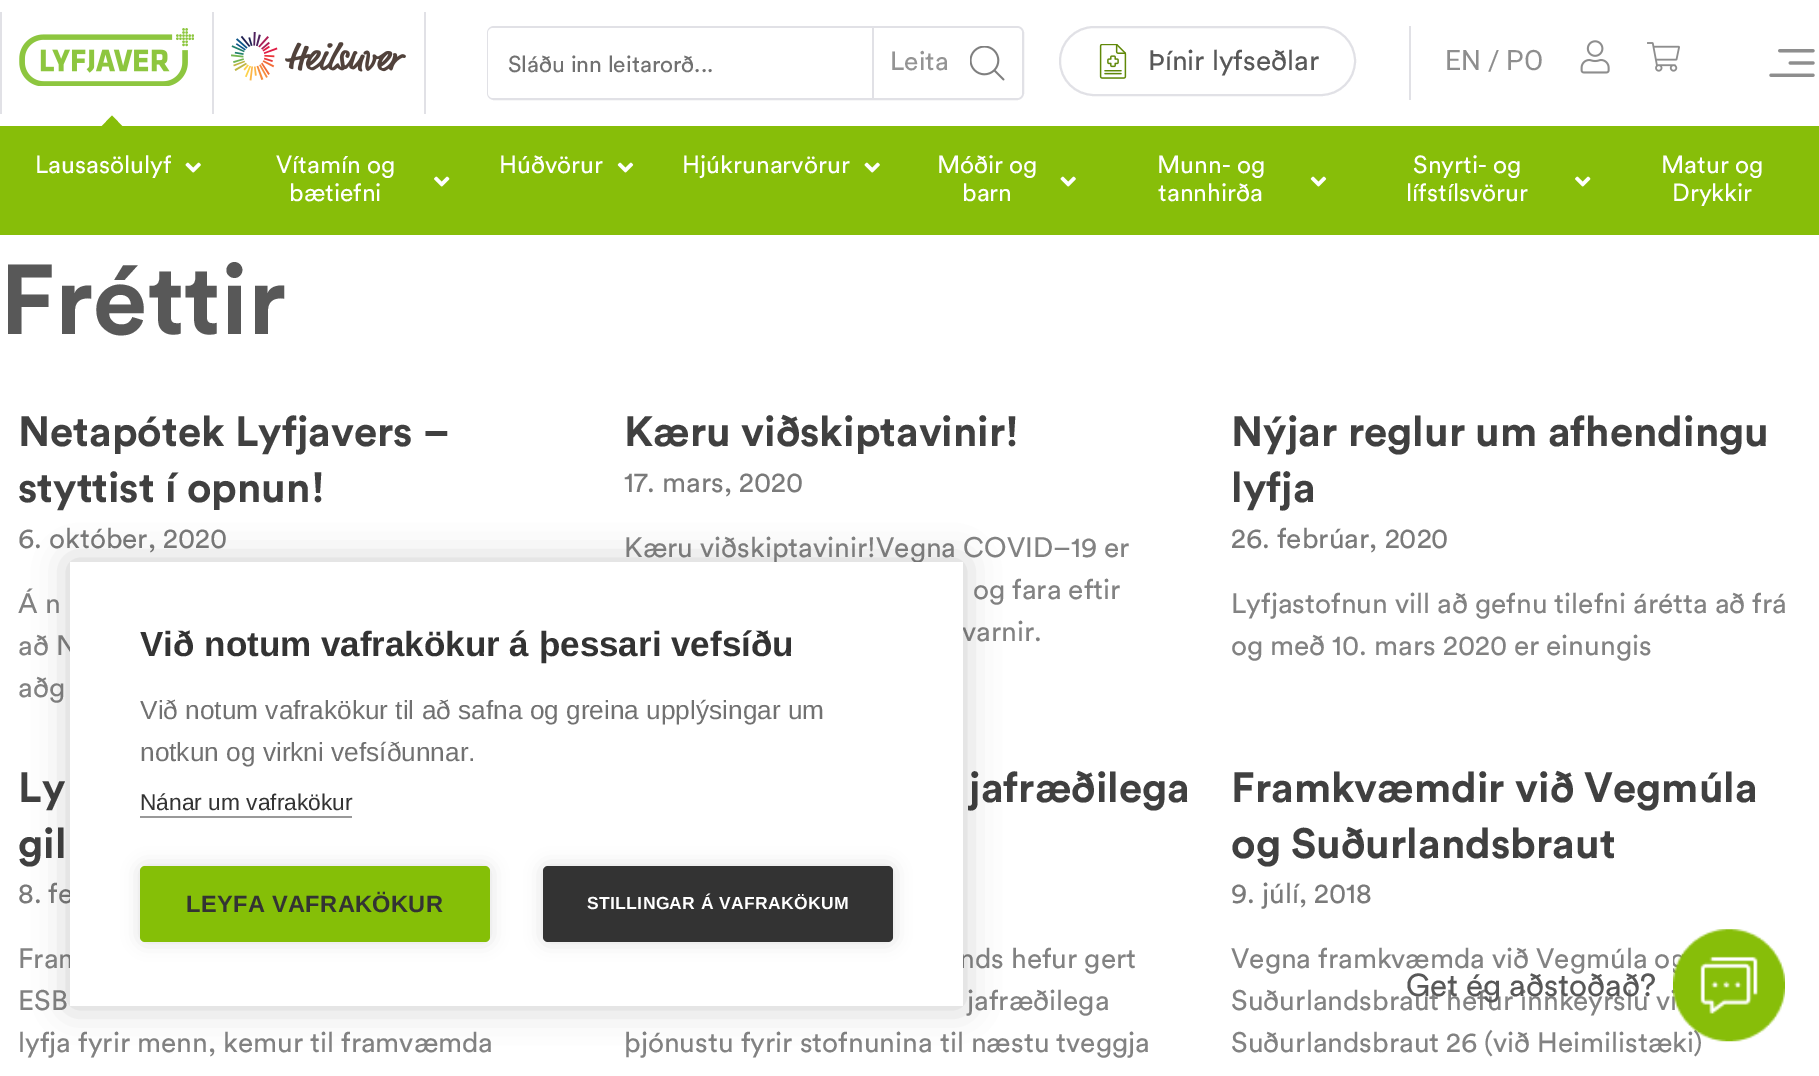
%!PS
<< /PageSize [1819 1076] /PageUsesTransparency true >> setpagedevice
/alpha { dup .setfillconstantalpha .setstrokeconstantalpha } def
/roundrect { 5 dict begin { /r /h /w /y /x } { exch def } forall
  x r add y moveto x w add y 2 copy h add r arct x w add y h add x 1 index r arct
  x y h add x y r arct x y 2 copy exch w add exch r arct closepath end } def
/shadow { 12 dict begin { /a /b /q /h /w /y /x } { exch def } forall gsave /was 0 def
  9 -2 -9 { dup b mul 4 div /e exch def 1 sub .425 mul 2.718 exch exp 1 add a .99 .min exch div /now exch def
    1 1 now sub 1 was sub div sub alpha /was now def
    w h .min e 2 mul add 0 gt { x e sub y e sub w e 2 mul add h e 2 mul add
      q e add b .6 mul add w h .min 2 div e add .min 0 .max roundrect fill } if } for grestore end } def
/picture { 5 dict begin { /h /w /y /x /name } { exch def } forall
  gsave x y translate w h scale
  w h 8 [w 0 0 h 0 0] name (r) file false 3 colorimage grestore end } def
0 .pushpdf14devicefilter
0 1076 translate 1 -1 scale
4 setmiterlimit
1 setgray
0 0 1819 1076 rectfill
0.882 0.882 0.902 setrgbcolor
0 12 2 102 rectfill
(img1.rgb) 19 28 175 58 picture
0.529 0.745 0.035 setrgbcolor
0 126 1819 109 rectfill
newpath 124 128 moveto 100 128 lineto 112 115.5 lineto closepath fill
0.882 0.882 0.902 setrgbcolor
424 12 2 102 rectfill
212 12 2 102 rectfill
(img2.rgb) 231 32 175 49 picture
1409 26 2 74 rectfill
2 setlinewidth
488 27 535 72 6 roundrect stroke
1 setgray
488 28 534 70 5 roundrect fill
/Circular-Regular [22.75 0 0 -22.75 0 0] selectfont
0.443 setgray
508 72 moveto (Sláðu inn leitarorð...) show
0.882 0.882 0.902 setrgbcolor
872 28 2 70 rectfill
/Circular-Regular [26.25 0 0 -26.25 0 0] selectfont
0.58 setgray
890 70 moveto (Leita) show
(img3.rgb) 970 46 35 35 picture
0.882 0.882 0.902 setrgbcolor
1060 27 295 68 34 roundrect stroke
(img4.rgb) 1099 44 28 35 picture
/Circular-Regular [28 0 0 -28 0 0] selectfont
0.345 setgray
1148 70 moveto (Þínir lyfseðlar) show
/Roboto-Regular [28 0 0 -28 0 0] selectfont
0.557 setgray
1445 70 moveto (EN / PO) show
(img5.rgb) 1580 40 30 34 picture
(img6.rgb) 1647 42 33 30 picture
(img7.rgb) 1769 49 46 28 picture
/Circular-Regular [24.5 0 0 -24.5 0 0] selectfont
1 setgray
35 173 moveto (Lausasölulyf) show
(img8.rgb) 185 162 16 11 picture
276 173 moveto (Vítamín og) show
289 201 moveto (bætiefni) show
(img9.rgb) 434 176 16 11 picture
499 173 moveto (Húðvörur) show
(img10.rgb) 617 162 17 11 picture
682 173 moveto (Hjúkrunarvörur) show
(img8.rgb) 864 162 16 11 picture
937 173 moveto (Móðir og) show
962 201 moveto (barn) show
(img8.rgb) 1060 176 16 11 picture
1157 173 moveto (Munn- og) show
1158 201 moveto (tannhirða) show
(img10.rgb) 1310 176 17 11 picture
1413 173 moveto (Snyrti- og) show
1406 201 moveto (lífstílsvörur) show
(img9.rgb) 1575 176 16 11 picture
1661 173 moveto (Matur og) show
1672 201 moveto (Drykkir) show
/Circular-Bold [98 0 0 -98 0 0] selectfont
0.345 setgray
0 334 moveto (Fréttir) show
/Circular-Bold [42 0 0 -42 0 0] selectfont
0.251 setgray
18 446 moveto (Netapótek Lyfjavers –) show
18 502 moveto (styttist í opnun!) show
/Circular-Regular [28 0 0 -28 0 0] selectfont
0.478 setgray
18 548 moveto (6. október, 2020) show
0.51 setgray
18 613 moveto (Á n) show
18 655 moveto (að N) show
18 697 moveto (aðg) show
/Circular-Bold [42 0 0 -42 0 0] selectfont
0.251 setgray
624 446 moveto (Kæru viðskiptavinir!) show
/Circular-Regular [28 0 0 -28 0 0] selectfont
0.478 setgray
624 492 moveto (17. mars, 2020) show
0.51 setgray
624 557 moveto (Kæru viðskiptavinir!Vegna COVID–19 er) show
973 599 moveto (og fara eftir) show
962 641 moveto (varnir.) show
/Circular-Bold [42 0 0 -42 0 0] selectfont
0.251 setgray
1231 446 moveto (Nýjar reglur um afhendingu) show
1231 502 moveto (lyfja) show
/Circular-Regular [28 0 0 -28 0 0] selectfont
0.478 setgray
1231 548 moveto (26. febrúar, 2020) show
0.51 setgray
1231 613 moveto (Lyfjastofnun vill að gefnu tilefni árétta að frá) show
1231 655 moveto (og með 10. mars 2020 er einungis) show
/Circular-Bold [42 0 0 -42 0 0] selectfont
0.251 setgray
18 802 moveto (Ly) show
18 858 moveto (gil) show
/Circular-Regular [28 0 0 -28 0 0] selectfont
0.478 setgray
18 903 moveto (8. fe) show
0.51 setgray
18 968 moveto (Fram) show
18 1010 moveto (ESB) show
18 1052 moveto (lyfja fyrir menn, kemur til framvæmda) show
/Circular-Bold [42 0 0 -42 0 0] selectfont
0.251 setgray
969 802 moveto (jafræðilega) show
/Circular-Regular [28 0 0 -28 0 0] selectfont
0.51 setgray
959 968 moveto (nds hefur gert) show
967 1010 moveto (jafræðilega) show
624 1052 moveto (þjónustu fyrir stofnunina til næstu tveggja) show
/Circular-Bold [42 0 0 -42 0 0] selectfont
0.251 setgray
1231 802 moveto (Framkvæmdir við Vegmúla) show
1231 858 moveto (og Suðurlandsbraut) show
/Circular-Regular [28 0 0 -28 0 0] selectfont
0.478 setgray
1231 903 moveto (9. júlí, 2018) show
0.51 setgray
1231 968 moveto (Vegna framkvæmda við Vegmúla o) show
1231 1010 moveto (Suðurlandsbraut hefur innkeyrslu vi) show
1231 1052 moveto (Suðurlandsbraut 26 \(við Heimilistæki\)) show
/Circular-Regular [31.5 0 0 -31.5 0 0] selectfont
0.345 setgray
1406 996 moveto (Get ég aðstoðað?) show
(img11.rgb) 1673 929 112 113 picture
0 setgray
70 562 893 444 0 17.5 0.2 shadow
1 setgray
70 562 893 444 rectfill
/LiberationSans-Bold [35 0 0 -35 0 0] selectfont
0.2 setgray
140 656 moveto (Við notum vafrakökur á þessari vefsíðu) show
/LiberationSans-Regular [26.25 0 0 -26.25 0 0] selectfont
0.443 setgray
140 719 moveto (Við notum vafrakökur til að safna og greina upplýsingar um) show
140 761 moveto (notkun og virkni vefsíðunnar.) show
/LiberationSans-Regular [22.75 0 0 -22.75 0 0] selectfont
0.2 setgray
140 810 moveto (Nánar um vafrakökur) show
0.6 setgray
140 816 212 2 rectfill
0 setgray
140 866 350 76 5 9 0.12 shadow
0.522 0.749 0.027 setrgbcolor
140 866 350 76 5 roundrect fill
/LiberationSans-Bold [23.6 0 0 -23.6 0 0] selectfont
0.2 setgray
186 912 moveto 0.35 0 (LEYFA VAFRAKÖKUR) ashow
0 setgray
543 866 350 76 5 9 0.12 shadow
0.2 setgray
543 866 350 76 5 roundrect fill
/LiberationSans-Bold [17.5 0 0 -17.5 0 0] selectfont
1 setgray
587 909 moveto 0.35 0 (STILLINGAR Á VAFRAKÖKUM) ashow
.poppdf14devicefilter showpage
